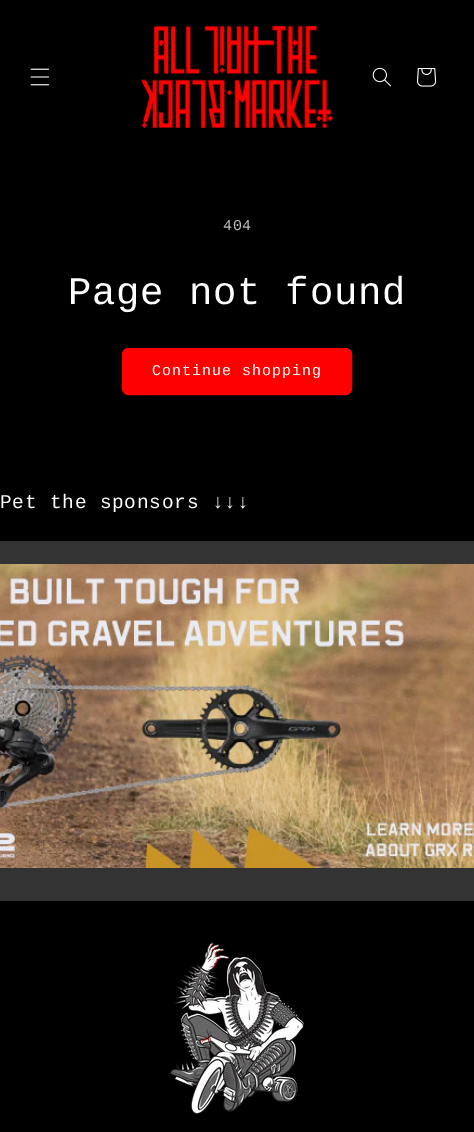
%!PS
<< /PageSize [474 1132] >> setpagedevice
/roundrect { 5 dict begin { /r /h /w /y /x } { exch def } forall
  x r add y moveto x w add y 2 copy h add r arct x w add y h add x 1 index r arct
  x y h add x y r arct x y 2 copy exch w add exch r arct closepath end } def
/picture { 5 dict begin { /h /w /y /x /name } { exch def } forall
  gsave x y translate w h scale
  w h 8 [w 0 0 h 0 0] name (r) file false 3 colorimage grestore end } def
0 1132 translate 1 -1 scale
4 setmiterlimit
0 setgray
0 0 474 1132 rectfill
(img1.rgb) 30 68 20 18 picture
(img2.rgb) 141 25 192 103 picture
(img3.rgb) 372 67 19 20 picture
(img4.rgb) 417 68 20 19 picture
/LiberationMono-Regular [15 0 0 -15 0 0] selectfont
0.749 setgray
223 230 moveto 0.5 0 (404) ashow
/LiberationMono-Regular [39 0 0 -39 0 0] selectfont
1 setgray
68 304 moveto 0.75 0 (Page not found) ashow
1 0 0 setrgbcolor
122 348 230 47 7 roundrect fill
122.5 348.5 229 46 6.5 roundrect stroke
/LiberationMono-Regular [15 0 0 -15 0 0] selectfont
1 setgray
152 375 moveto 1 0 (Continue shopping) ashow
/LiberationMono-Regular [19.5 0 0 -19.5 0 0] selectfont
0 508 moveto 0.75 0 (Pet the sponsors ↓↓↓) ashow
0.2 setgray
0 541 474 360 rectfill
(img5.rgb) 0 564 474 304 picture
(img6.rgb) 170 942 134 173 picture
showpage
